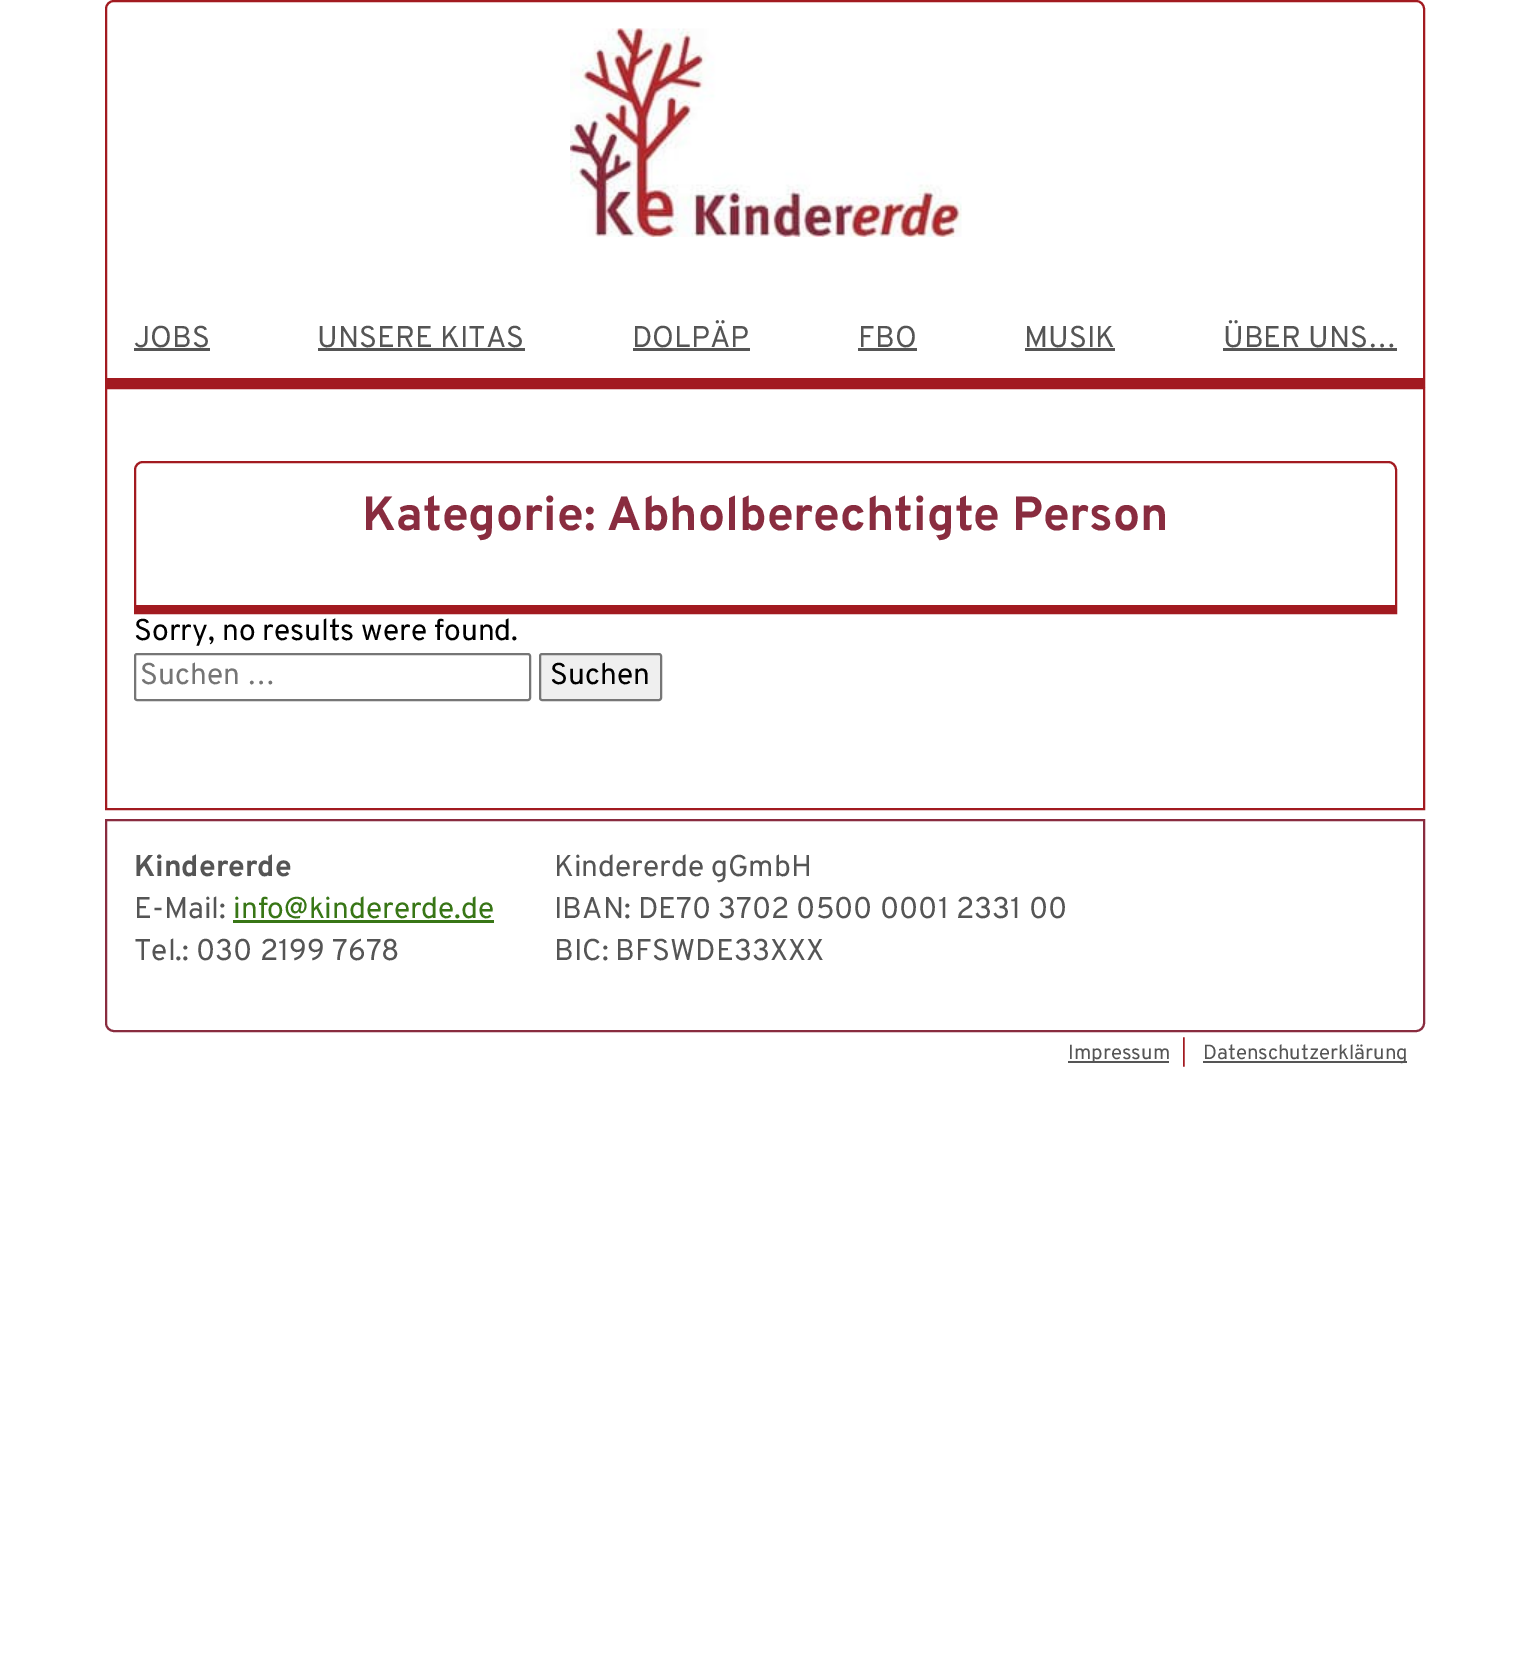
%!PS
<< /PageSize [1530 1656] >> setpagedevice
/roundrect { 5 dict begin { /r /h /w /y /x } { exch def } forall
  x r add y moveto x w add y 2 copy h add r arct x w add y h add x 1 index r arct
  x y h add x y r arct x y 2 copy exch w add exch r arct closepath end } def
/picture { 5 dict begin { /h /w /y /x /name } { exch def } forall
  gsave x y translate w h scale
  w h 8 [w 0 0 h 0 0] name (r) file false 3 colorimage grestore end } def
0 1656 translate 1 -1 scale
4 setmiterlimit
1 setgray
0 0 1530 1656 rectfill
0.635 0.102 0.125 setrgbcolor
2 setlinewidth
newpath 114 1 moveto 1416 1 lineto 1420.5 1 1424 4.5 1424 9 curveto 1424 386 lineto 106 386 lineto 106 9 lineto 106 4.5 109.5 1 114 1 curveto closepath stroke
105 378 1320 7 rectfill
(img1.rgb) 570 28 392 209 picture
/Overpass-Regular [30 0 0 -30 0 0] selectfont
0.333 setgray
134 347 moveto (JOBS) show
134 348 76 3 rectfill
317 347 moveto (UNSERE KITAS) show
318 348 207 3 rectfill
632 347 moveto (DOLPÄP) show
633 348 117 3 rectfill
858 347 moveto (FBO) show
858 348 59 3 rectfill
1024 347 moveto (MUSIK) show
1025 348 90 3 rectfill
1223 347 moveto (ÜBER UNS…) show
1223 348 174 3 rectfill
0.635 0.102 0.125 setrgbcolor
106 388 1318 421 rectstroke
newpath 143 462 moveto 1388 462 lineto 1392.5 462 1396 465.5 1396 470 curveto 1396 613 lineto 135 613 lineto 135 470 lineto 135 465.5 138.5 462 143 462 curveto closepath stroke
134 605 1263 7 rectfill
/Overpass-Bold [48 0 0 -48 0 0] selectfont
0.537 0.173 0.247 setrgbcolor
362 530 moveto (Kategorie: Abholberechtigte Person) show
/Overpass-Regular [30 0 0 -30 0 0] selectfont
0 setgray
134 640 moveto (Sorry, no results were found.) show
0.463 setgray
135 654 395 46 2 roundrect stroke
0.459 setgray
140 684 moveto (Suchen …) show
0.937 setgray
540 654 121 46 2 roundrect gsave fill grestore
0.463 setgray
stroke
0 setgray
550 684 moveto (Suchen) show
0.537 0.173 0.247 setrgbcolor
newpath 106 820 moveto 1424 820 lineto 1424 1023 lineto 1424 1027.5 1420.5 1031 1416 1031 curveto 114 1031 lineto 109.5 1031 106 1027.5 106 1023 curveto closepath stroke
/Overpass-Bold [30 0 0 -30 0 0] selectfont
0.333 setgray
134 876 moveto (Kindererde) show
/Overpass-Regular [30 0 0 -30 0 0] selectfont
134 918 moveto (E-Mail:) show
0.22 0.463 0.086 setrgbcolor
233 918 moveto (info@kindererde.de) show
233 920 261 3 rectfill
0.333 setgray
134 960 moveto (Tel.: 030 2199 7678) show
554 876 moveto (Kindererde gGmbH) show
554 918 moveto (IBAN: DE70 3702 0500 0001 2331 00) show
554 960 moveto (BIC: BFSWDE33XXX) show
1068 1061 101 2 rectfill
/Overpass-Regular [20.5 0 0 -20.5 0 0] selectfont
1068 1059 moveto (Impressum) show
0.635 0.102 0.125 setrgbcolor
1181 1059 moveto (|) show
0.333 setgray
1203 1061 204 2 rectfill
1203 1059 moveto (Datenschutzerklärung) show
showpage
